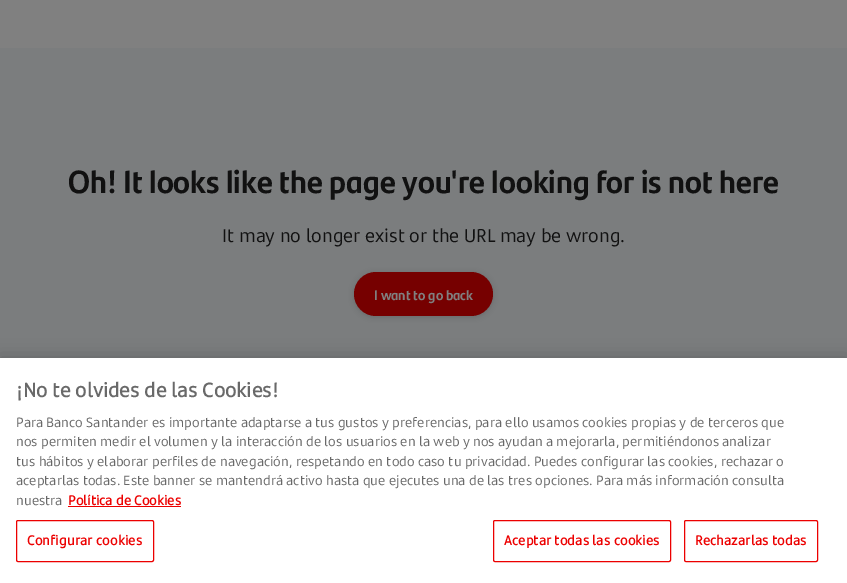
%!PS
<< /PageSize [847 583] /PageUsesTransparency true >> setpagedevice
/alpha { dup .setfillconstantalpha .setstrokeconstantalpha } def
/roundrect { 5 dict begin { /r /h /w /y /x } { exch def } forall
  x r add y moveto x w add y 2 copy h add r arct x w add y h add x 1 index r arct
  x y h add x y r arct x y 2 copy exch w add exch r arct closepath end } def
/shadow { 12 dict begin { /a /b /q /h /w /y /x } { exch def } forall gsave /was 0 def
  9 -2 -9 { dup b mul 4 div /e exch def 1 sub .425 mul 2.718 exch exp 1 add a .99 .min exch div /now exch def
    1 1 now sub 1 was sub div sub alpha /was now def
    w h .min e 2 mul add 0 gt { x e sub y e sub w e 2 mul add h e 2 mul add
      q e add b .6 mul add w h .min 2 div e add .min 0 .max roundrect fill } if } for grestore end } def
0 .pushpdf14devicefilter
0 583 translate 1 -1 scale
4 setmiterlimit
0.502 setgray
0 0 847 583 rectfill
0.482 0.49 0.494 setrgbcolor
0 48 847 310 rectfill
/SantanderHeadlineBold-Bold [32 0 0 -32 0 0] selectfont
0.067 setgray
68 193 moveto (Oh! It looks like the page you're looking for is not here) show
/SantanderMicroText-Regular [18 0 0 -18 0 0] selectfont
222 242 moveto (It may no longer exist or the URL may be wrong.) show
0.133 setgray
354 273 139 44 22 3 0.2 shadow
0.463 0 0 setrgbcolor
354 272 139 44 22 roundrect fill
/SantanderHeadlineBold-Bold [14 0 0 -14 0 0] selectfont
0.502 setgray
374 300 moveto (I want to go back) show
0 setgray
0 358 847 225 0 9 0.2 shadow
1 setgray
0 358 847 225 rectfill
/SantanderMicroText-Bold [19.25 0 0 -19.25 0 0] selectfont
0.412 setgray
16 397 moveto (¡No te olvides de las Cookies!) show
/SantanderMicroText-Regular [13 0 0 -13 0 0] selectfont
16 427 moveto (Para Banco Santander es importante adaptarse a tus gustos y preferencias, para ello usamos cookies propias y de terceros que) show
16 446 moveto (nos permiten medir el volumen y la interacción de los usuarios en la web y nos ayudan a mejorarla, permitiéndonos analizar) show
16 466 moveto (tus hábitos y elaborar perfiles de navegación, respetando en todo caso tu privacidad. Puedes configurar las cookies, rechazar o) show
16 485 moveto (aceptarlas todas. Este banner se mantendrá activo hasta que ejecutes una de las tres opciones. Para más información consulta) show
16 505 moveto (nuestra) show
/SantanderMicroText-Bold [13 0 0 -13 0 0] selectfont
0.925 0 0 setrgbcolor
68 505 moveto (Política de Cookies) show
68 506 113 1 rectfill
16.5 520.5 137 41 1.5 roundrect stroke
27 545 moveto 0.1 0 (Configurar cookies) ashow
493.5 520.5 177 41 1.5 roundrect stroke
504 545 moveto 0.1 0 (Aceptar todas las cookies) ashow
684.5 520.5 133 41 1.5 roundrect stroke
695 545 moveto 0.1 0 (Rechazarlas todas) ashow
.poppdf14devicefilter showpage
